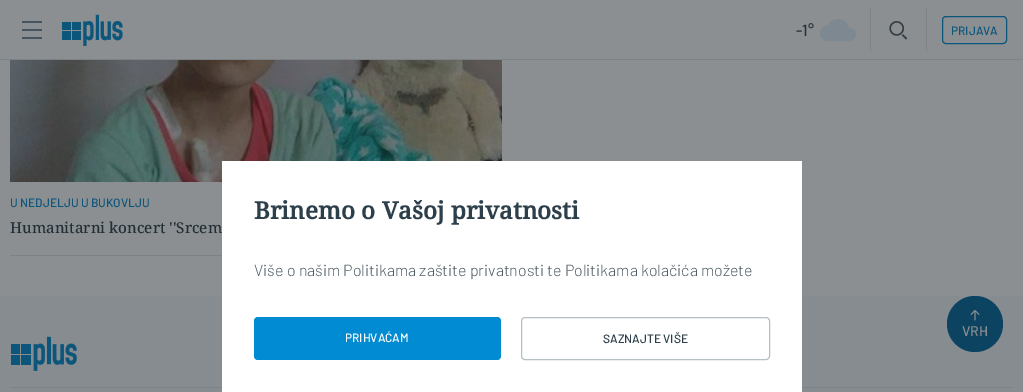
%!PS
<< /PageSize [1023 392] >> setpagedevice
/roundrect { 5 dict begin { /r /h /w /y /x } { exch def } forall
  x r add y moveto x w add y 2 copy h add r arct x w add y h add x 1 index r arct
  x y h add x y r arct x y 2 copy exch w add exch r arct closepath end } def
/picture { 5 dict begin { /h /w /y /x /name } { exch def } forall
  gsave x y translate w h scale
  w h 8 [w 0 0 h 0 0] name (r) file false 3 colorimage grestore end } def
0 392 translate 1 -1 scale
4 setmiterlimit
0.545 0.561 0.573 setrgbcolor
0 0 1023 392 rectfill
0.486 0.514 0.529 setrgbcolor
0 59 1023 1 rectfill
(img1.rgb) 22 21 20 18 picture
(img2.rgb) 62 14 61 32 picture
/Barlow-Medium [16 0 0 -16 0 0] selectfont
0.133 0.184 0.216 setrgbcolor
796 36 moveto (-1°) show
(img3.rgb) 820 18 36 24 picture
0.486 0.514 0.529 setrgbcolor
870 8 1 43 rectfill
(img4.rgb) 889 21 19 19 picture
926 8 1 43 rectfill
0.047 0.333 0.482 setrgbcolor
942.5 16.5 64 27 3.5 roundrect stroke
/Barlow-Medium [12 0 0 -12 0 0] selectfont
951 35 moveto (PRIJAVA) show
(img5.rgb) 10 60 492 122 picture
10 207 moveto (U NEDJELJU U BUKOVLJU) show
/NotoSerif-Medium [15 0 0 -15 0 0] selectfont
0.133 0.184 0.216 setrgbcolor
10 233 moveto (Humanitarni koncert ''Srcem) show
0.486 0.514 0.529 setrgbcolor
10 255 212 1 rectfill
0.525 0.549 0.565 setrgbcolor
0 296 1023 96 rectfill
0.486 0.514 0.529 setrgbcolor
10 387 1003 1 rectfill
1 setgray
222 161 580 231 rectfill
/NotoSerif-Bold [24 0 0 -24 0 0] selectfont
0.173 0.247 0.29 setrgbcolor
254 219 moveto (Brinemo o Vašoj privatnosti) show
/Barlow-Light [16 0 0 -16 0 0] selectfont
0.314 0.373 0.408 setrgbcolor
254 276 moveto (Više o našim Politikama zaštite privatnosti te Politikama kolačića možete) show
0 0.545 0.824 setrgbcolor
254 317 247 43 4 roundrect fill
/Barlow-Medium [12 0 0 -12 0 0] selectfont
1 setgray
345 342 moveto (PRIHVAĆAM) show
0.71 0.753 0.773 setrgbcolor
521.5 317.5 248 42 3.5 roundrect stroke
0.173 0.247 0.29 setrgbcolor
603 343 moveto (SAZNAJTE VIŠE) show
(img6.rgb) 11 336 66 35 picture
0.047 0.263 0.376 setrgbcolor
newpath 975 324 28 0 360 arc closepath fill
(img7.rgb) 970 310 10 11 picture
/Barlow-Medium [14 0 0 -14 0 0] selectfont
0.545 0.561 0.573 setrgbcolor
962 336 moveto (VRH) show
showpage
